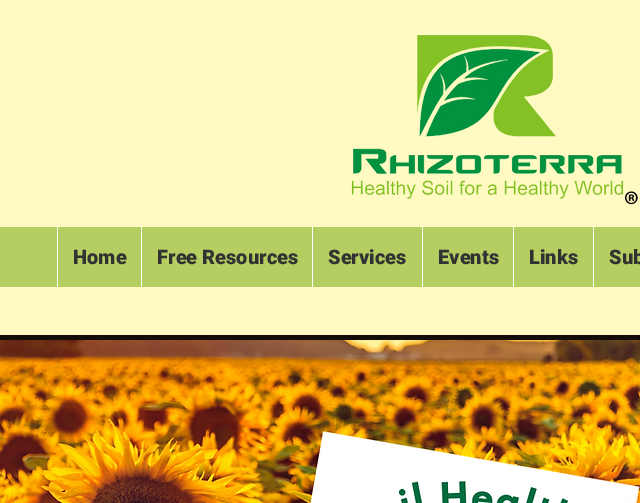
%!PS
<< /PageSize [640 503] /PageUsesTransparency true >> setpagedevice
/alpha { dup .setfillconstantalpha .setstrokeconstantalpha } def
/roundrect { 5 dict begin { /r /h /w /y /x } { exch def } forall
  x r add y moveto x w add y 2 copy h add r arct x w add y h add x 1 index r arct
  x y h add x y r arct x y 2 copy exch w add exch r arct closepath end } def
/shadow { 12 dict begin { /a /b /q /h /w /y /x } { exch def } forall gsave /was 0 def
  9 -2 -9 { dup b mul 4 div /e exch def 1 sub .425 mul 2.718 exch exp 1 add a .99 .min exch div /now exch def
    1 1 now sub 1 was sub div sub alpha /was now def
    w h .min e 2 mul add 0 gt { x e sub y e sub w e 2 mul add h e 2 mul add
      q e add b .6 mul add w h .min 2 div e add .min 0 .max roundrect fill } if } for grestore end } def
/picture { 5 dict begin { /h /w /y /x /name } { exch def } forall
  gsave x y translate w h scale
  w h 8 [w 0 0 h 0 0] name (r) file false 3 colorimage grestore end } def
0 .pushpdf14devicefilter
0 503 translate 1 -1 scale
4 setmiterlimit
0.086 0.051 0.035 setrgbcolor
0 0 640 503 rectfill
(img2.rgb) 0 340 640 163 picture
0 setgray
0 0 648 335 0 2.5 0.7 shadow
1 0.98 0.761 setrgbcolor
0 0 640 335 rectfill
(img1.rgb) 351 35 287 170 picture
0.706 0.808 0.38 setrgbcolor
0 227 640 60 rectfill
1 setgray
57 227 1 60 rectfill
/Roboto-Black [20 0 0 -20 0 0] selectfont
0.196 setgray
73 264 moveto (Home) show
1 setgray
141 227 1 60 rectfill
0.196 setgray
157 264 moveto (Free Resources) show
1 setgray
312 227 1 60 rectfill
0.196 setgray
328 264 moveto (Services) show
1 setgray
422 227 1 60 rectfill
0.196 setgray
438 264 moveto (Events) show
1 setgray
513 227 1 60 rectfill
0.196 setgray
529 264 moveto (Links) show
1 setgray
593 227 1 60 rectfill
0.196 setgray
609 264 moveto (Sub) show
.poppdf14devicefilter showpage
